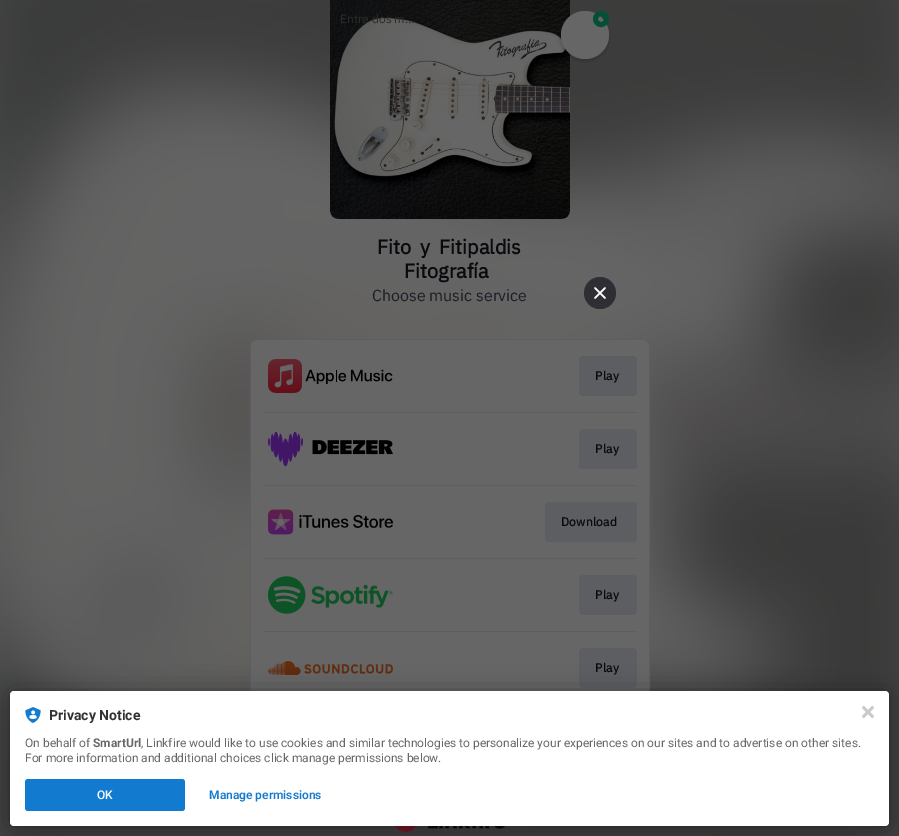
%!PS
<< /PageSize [899 836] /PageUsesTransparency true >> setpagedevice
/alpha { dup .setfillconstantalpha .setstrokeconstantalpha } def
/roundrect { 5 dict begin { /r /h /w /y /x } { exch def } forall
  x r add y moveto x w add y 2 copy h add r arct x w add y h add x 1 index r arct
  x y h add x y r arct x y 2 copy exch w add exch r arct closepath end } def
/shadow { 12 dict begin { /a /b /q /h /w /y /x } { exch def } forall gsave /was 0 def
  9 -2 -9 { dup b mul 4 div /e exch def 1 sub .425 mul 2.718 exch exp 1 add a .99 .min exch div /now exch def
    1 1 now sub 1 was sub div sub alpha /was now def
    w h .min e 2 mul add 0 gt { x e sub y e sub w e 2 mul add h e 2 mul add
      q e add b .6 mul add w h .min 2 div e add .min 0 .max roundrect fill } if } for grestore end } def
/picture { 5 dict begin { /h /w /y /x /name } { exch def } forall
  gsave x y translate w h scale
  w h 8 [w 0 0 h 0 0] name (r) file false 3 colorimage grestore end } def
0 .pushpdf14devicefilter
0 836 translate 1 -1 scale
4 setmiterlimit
0.4 setgray
0 0 899 836 rectfill
(img1.rgb) 0 0 899 836 picture
(img2.rgb) 330 0 240 219 picture
0 setgray
561 13 48 48 24 2 0.2 shadow
0.4 setgray
newpath 585 35 24 0 360 arc closepath fill
0.02 0.31 0.212 setrgbcolor
5 setlinewidth
newpath 601 19 5.5 0 360 arc closepath stroke
0.184 0.18 0.208 setrgbcolor
newpath 600 293 16 0 360 arc closepath fill
1 setgray
1.7 setlinewidth
1 setlinecap
1 setlinejoin
newpath 595 288 moveto 605 298 lineto 595 298 moveto 605 288 lineto stroke
/IBMPlexSans-Regular [12 0 0 -12 0 0] selectfont
0.169 setgray
340 23 moveto (Entre dos m…) show
/IBMPlexSans-Bold [20 0 0 -20 0 0] selectfont
0.039 0.035 0.051 setrgbcolor
377 254 moveto 4 0 32 (Fito y Fitipaldis) widthshow
404 278 moveto (Fitografía) show
/IBMPlexSans-Regular [16 0 0 -16 0 0] selectfont
0.11 0.118 0.149 setrgbcolor
372 301 moveto (Choose music service) show
0.361 0.369 0.38 setrgbcolor
1 setlinewidth
0 setlinecap
0 setlinejoin
250.5 339.5 399 365 7.5 roundrect stroke
0.4 setgray
251 340 398 364 7 roundrect fill
(img3.rgb) 268 359 125 34 picture
0.361 0.369 0.38 setrgbcolor
579 356 58 40 4 roundrect fill
/IBMPlexSans-Bold [12 0 0 -12 0 0] selectfont
0.039 0.035 0.051 setrgbcolor
595 380 moveto 0.25 0 (Play) ashow
0.361 0.369 0.38 setrgbcolor
263 412 374 1 rectfill
(img4.rgb) 268 431 125 36 picture
579 429 58 40 4 roundrect fill
0.039 0.035 0.051 setrgbcolor
595 453 moveto 0.25 0 (Play) ashow
0.361 0.369 0.38 setrgbcolor
263 485 374 1 rectfill
(img5.rgb) 268 509 125 26 picture
545 502 92 40 4 roundrect fill
0.039 0.035 0.051 setrgbcolor
561 526 moveto 0.25 0 (Download) ashow
0.361 0.369 0.38 setrgbcolor
263 558 374 1 rectfill
(img6.rgb) 268 576 125 38 picture
579 575 58 40 4 roundrect fill
0.039 0.035 0.051 setrgbcolor
595 599 moveto 0.25 0 (Play) ashow
0.361 0.369 0.38 setrgbcolor
263 631 374 1 rectfill
(img7.rgb) 268 661 125 14 picture
579 648 58 40 4 roundrect fill
0.039 0.035 0.051 setrgbcolor
595 672 moveto 0.25 0 (Play) ashow
(img8.rgb) 395 826 110 6 picture
0 setgray
10 691 879 135 4 2 0.12 shadow
10 691 879 135 4 12 0.3 shadow
1 setgray
10 691 879 135 4 roundrect fill
(img9.rgb) 25 707 16 16 picture
/Roboto-Bold [14 0 0 -14 0 0] selectfont
0.196 setgray
49 720 moveto (Privacy Notice) show
/Roboto-Regular [12 0 0 -12 0 0] selectfont
0.408 setgray
25 747 moveto (On behalf of) show
/Roboto-Bold [12 0 0 -12 0 0] selectfont
93 747 moveto (SmartUrl) show
/Roboto-Regular [12 0 0 -12 0 0] selectfont
141 747 moveto (, Linkfire would like to use cookies and similar technologies to personalize your experiences on our sites and to advertise on other sites.) show
25 762 moveto (For more information and additional choices click manage permissions below.) show
0.075 0.482 0.812 setrgbcolor
25 779 160 32 3 roundrect fill
/Roboto-Medium [12 0 0 -12 0 0] selectfont
1 setgray
97 799 moveto (OK) show
/Roboto-SemiBold [12 0 0 -12 0 0] selectfont
0.075 0.482 0.812 setrgbcolor
209 799 moveto (Manage permissions) show
(img10.rgb) 862 706 12 12 picture
.poppdf14devicefilter showpage
